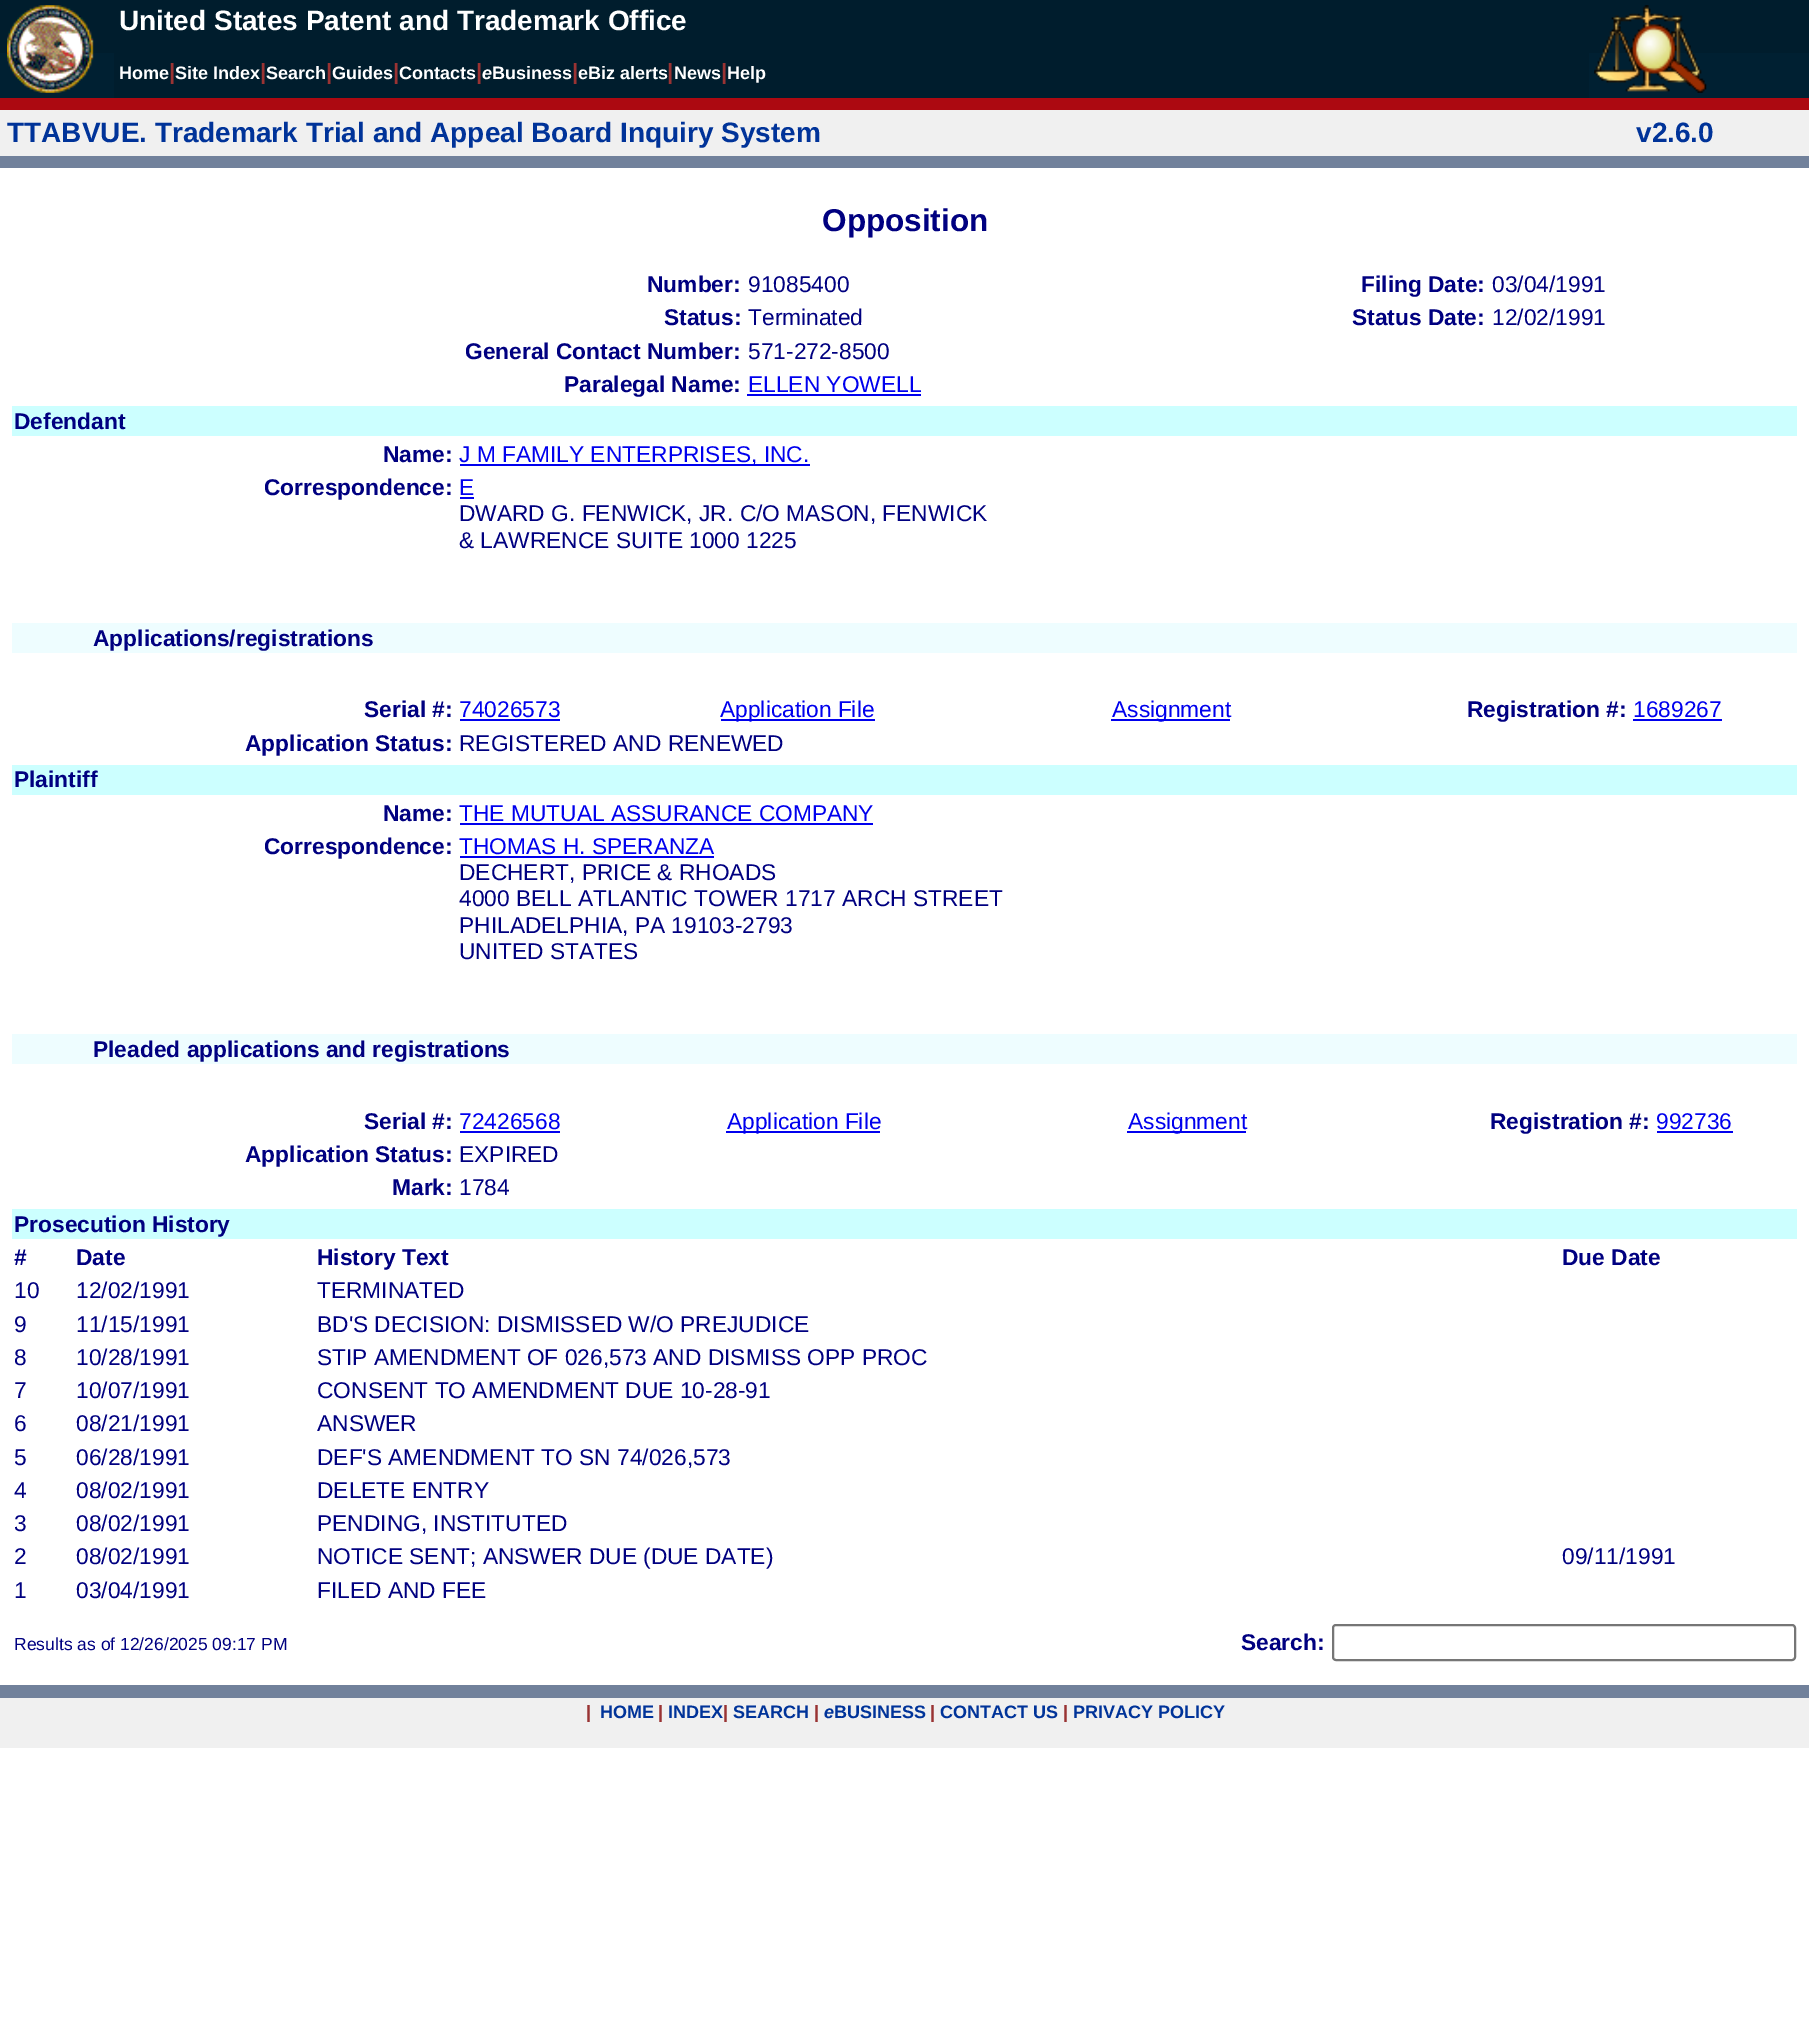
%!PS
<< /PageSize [1809 2020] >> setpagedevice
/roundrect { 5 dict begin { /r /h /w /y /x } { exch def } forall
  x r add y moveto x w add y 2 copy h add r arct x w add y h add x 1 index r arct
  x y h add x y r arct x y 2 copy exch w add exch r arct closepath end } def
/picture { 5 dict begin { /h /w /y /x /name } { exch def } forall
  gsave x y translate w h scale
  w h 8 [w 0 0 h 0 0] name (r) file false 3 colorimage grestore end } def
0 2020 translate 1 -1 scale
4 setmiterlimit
1 setgray
0 0 1809 2020 rectfill
0 0.114 0.176 setrgbcolor
0 0 1809 53 rectfill
0 0.125 0.196 setrgbcolor
0 53 1809 45 rectfill
(img1.rgb) 7 5 87 88 picture
/LiberationSans-Bold [28 0 0 -28 0 0] selectfont
1 setgray
119 30 moveto (United States Patent and Trademark Office) show
(img2.rgb) 1594 5 113 88 picture
0 0.114 0.176 setrgbcolor
114 53 1475 45 rectfill
/LiberationSans-Bold [18 0 0 -18 0 0] selectfont
1 setgray
119 79 moveto (Home) show
/LiberationSans-Bold [22 0 0 -22 0 0] selectfont
0.6 0.2 0.2 setrgbcolor
169 79 moveto (|) show
/LiberationSans-Bold [18 0 0 -18 0 0] selectfont
1 setgray
175 79 moveto (Site Index) show
/LiberationSans-Bold [22 0 0 -22 0 0] selectfont
0.6 0.2 0.2 setrgbcolor
260 79 moveto (|) show
/LiberationSans-Bold [18 0 0 -18 0 0] selectfont
1 setgray
266 79 moveto (Search) show
/LiberationSans-Bold [22 0 0 -22 0 0] selectfont
0.6 0.2 0.2 setrgbcolor
326 79 moveto (|) show
/LiberationSans-Bold [18 0 0 -18 0 0] selectfont
1 setgray
332 79 moveto (Guides) show
/LiberationSans-Bold [22 0 0 -22 0 0] selectfont
0.6 0.2 0.2 setrgbcolor
393 79 moveto (|) show
/LiberationSans-Bold [18 0 0 -18 0 0] selectfont
1 setgray
399 79 moveto (Contacts) show
/LiberationSans-Bold [22 0 0 -22 0 0] selectfont
0.6 0.2 0.2 setrgbcolor
476 79 moveto (|) show
/LiberationSans-BoldItalic [18 0 0 -18 0 0] selectfont
1 setgray
482 79 moveto (e) show
/LiberationSans-Bold [18 0 0 -18 0 0] selectfont
492 79 moveto (Business) show
/LiberationSans-Bold [22 0 0 -22 0 0] selectfont
0.6 0.2 0.2 setrgbcolor
572 79 moveto (|) show
/LiberationSans-Bold [18 0 0 -18 0 0] selectfont
1 setgray
578 79 moveto (eBiz alerts) show
/LiberationSans-Bold [22 0 0 -22 0 0] selectfont
0.6 0.2 0.2 setrgbcolor
667 79 moveto (|) show
/LiberationSans-Bold [18 0 0 -18 0 0] selectfont
1 setgray
674 79 moveto (News) show
/LiberationSans-Bold [22 0 0 -22 0 0] selectfont
0.6 0.2 0.2 setrgbcolor
721 79 moveto (|) show
/LiberationSans-Bold [18 0 0 -18 0 0] selectfont
1 setgray
727 79 moveto (Help) show
0.675 0.035 0.067 setrgbcolor
0 98 1809 12 rectfill
0.941 setgray
0 110 1809 46 rectfill
/LiberationSans-Bold [28 0 0 -28 0 0] selectfont
0 0.2 0.6 setrgbcolor
7 142 moveto (TTABVUE. Trademark Trial and Appeal Board Inquiry System) show
1636 142 moveto (v2.6.0) show
0.443 0.506 0.608 setrgbcolor
0 156 1809 12 rectfill
/LiberationSans-Bold [31.5 0 0 -31.5 0 0] selectfont
0 0 0.502 setrgbcolor
822 231 moveto (Opposition) show
/LiberationSans-Bold [22.75 0 0 -22.75 0 0] selectfont
647 292 moveto (Number:) show
/LiberationSans-Regular [22.75 0 0 -22.75 0 0] selectfont
748 292 moveto (91085400) show
/LiberationSans-Bold [22.75 0 0 -22.75 0 0] selectfont
1361 292 moveto (Filing Date:) show
/LiberationSans-Regular [22.75 0 0 -22.75 0 0] selectfont
1492 292 moveto (03/04/1991) show
/LiberationSans-Bold [22.75 0 0 -22.75 0 0] selectfont
664 325 moveto (Status:) show
/LiberationSans-Regular [22.75 0 0 -22.75 0 0] selectfont
748 325 moveto (Terminated) show
/LiberationSans-Bold [22.75 0 0 -22.75 0 0] selectfont
1352 325 moveto (Status Date:) show
/LiberationSans-Regular [22.75 0 0 -22.75 0 0] selectfont
1492 325 moveto (12/02/1991) show
/LiberationSans-Bold [22.75 0 0 -22.75 0 0] selectfont
465 359 moveto (General Contact Number:) show
/LiberationSans-Regular [22.75 0 0 -22.75 0 0] selectfont
748 359 moveto (571-272-8500) show
/LiberationSans-Bold [22.75 0 0 -22.75 0 0] selectfont
564 392 moveto (Paralegal Name:) show
/LiberationSans-Regular [22.75 0 0 -22.75 0 0] selectfont
0 0 0.933 setrgbcolor
748 392 moveto (ELLEN YOWELL) show
747 394 174 2 rectfill
0.8 1 1 setrgbcolor
12 406 1785 30 rectfill
/LiberationSans-Bold [22.75 0 0 -22.75 0 0] selectfont
0 0 0.502 setrgbcolor
14 429 moveto (Defendant) show
383 462 moveto (Name:) show
0 0 0.933 setrgbcolor
460 464 350 2 rectfill
/LiberationSans-Regular [22.75 0 0 -22.75 0 0] selectfont
459 462 moveto (J M FAMILY ENTERPRISES, INC.) show
/LiberationSans-Bold [22.75 0 0 -22.75 0 0] selectfont
0 0 0.502 setrgbcolor
264 495 moveto (Correspondence:) show
/LiberationSans-Regular [22.75 0 0 -22.75 0 0] selectfont
0 0 0.933 setrgbcolor
459 495 moveto (E) show
460 497 14 2 rectfill
0 0 0.502 setrgbcolor
459 521 moveto (DWARD G. FENWICK, JR. C/O MASON, FENWICK) show
459 548 moveto (& LAWRENCE SUITE 1000 1225) show
0.933 0.992 1 setrgbcolor
12 623 1785 30 rectfill
/LiberationSans-Bold [22.75 0 0 -22.75 0 0] selectfont
0 0 0.502 setrgbcolor
93 646 moveto (Applications/registrations) show
364 717 moveto (Serial #:) show
/LiberationSans-Regular [22.75 0 0 -22.75 0 0] selectfont
0 0 0.933 setrgbcolor
459 717 moveto (74026573) show
460 719 100 2 rectfill
721 719 154 2 rectfill
720 717 moveto (Application File) show
1111 719 119 2 rectfill
1112 717 moveto (Assignment) show
/LiberationSans-Bold [22.75 0 0 -22.75 0 0] selectfont
0 0 0.502 setrgbcolor
1467 717 moveto (Registration #:) show
/LiberationSans-Regular [22.75 0 0 -22.75 0 0] selectfont
0 0 0.933 setrgbcolor
1633 717 moveto (1689267) show
1633 719 89 2 rectfill
/LiberationSans-Bold [22.75 0 0 -22.75 0 0] selectfont
0 0 0.502 setrgbcolor
245 751 moveto (Application Status:) show
/LiberationSans-Regular [22.75 0 0 -22.75 0 0] selectfont
459 751 moveto (REGISTERED AND RENEWED) show
0.8 1 1 setrgbcolor
12 765 1785 30 rectfill
/LiberationSans-Bold [22.75 0 0 -22.75 0 0] selectfont
0 0 0.502 setrgbcolor
14 787 moveto (Plaintiff) show
383 821 moveto (Name:) show
/LiberationSans-Regular [22.75 0 0 -22.75 0 0] selectfont
0 0 0.933 setrgbcolor
459 821 moveto (THE MUTUAL ASSURANCE COMPANY) show
460 823 413 2 rectfill
/LiberationSans-Bold [22.75 0 0 -22.75 0 0] selectfont
0 0 0.502 setrgbcolor
264 854 moveto (Correspondence:) show
/LiberationSans-Regular [22.75 0 0 -22.75 0 0] selectfont
0 0 0.933 setrgbcolor
459 854 moveto (THOMAS H. SPERANZA) show
460 856 254 2 rectfill
0 0 0.502 setrgbcolor
459 880 moveto (DECHERT, PRICE & RHOADS) show
459 906 moveto (4000 BELL ATLANTIC TOWER 1717 ARCH STREET) show
459 933 moveto (PHILADELPHIA, PA 19103-2793) show
459 959 moveto (UNITED STATES) show
0.933 0.992 1 setrgbcolor
12 1034 1785 30 rectfill
/LiberationSans-Bold [22.75 0 0 -22.75 0 0] selectfont
0 0 0.502 setrgbcolor
93 1057 moveto (Pleaded applications and registrations) show
364 1129 moveto (Serial #:) show
/LiberationSans-Regular [22.75 0 0 -22.75 0 0] selectfont
0 0 0.933 setrgbcolor
459 1129 moveto (72426568) show
460 1131 100 2 rectfill
726 1131 154 2 rectfill
727 1129 moveto (Application File) show
1127 1131 119 2 rectfill
1128 1129 moveto (Assignment) show
/LiberationSans-Bold [22.75 0 0 -22.75 0 0] selectfont
0 0 0.502 setrgbcolor
1490 1129 moveto (Registration #:) show
/LiberationSans-Regular [22.75 0 0 -22.75 0 0] selectfont
0 0 0.933 setrgbcolor
1656 1129 moveto (992736) show
1657 1131 76 2 rectfill
/LiberationSans-Bold [22.75 0 0 -22.75 0 0] selectfont
0 0 0.502 setrgbcolor
245 1162 moveto (Application Status:) show
/LiberationSans-Regular [22.75 0 0 -22.75 0 0] selectfont
459 1162 moveto (EXPIRED) show
/LiberationSans-Bold [22.75 0 0 -22.75 0 0] selectfont
392 1195 moveto (Mark:) show
/LiberationSans-Regular [22.75 0 0 -22.75 0 0] selectfont
459 1195 moveto (1784) show
0.8 1 1 setrgbcolor
12 1209 1785 30 rectfill
/LiberationSans-Bold [22.75 0 0 -22.75 0 0] selectfont
0 0 0.502 setrgbcolor
14 1232 moveto (Prosecution History) show
14 1265 moveto (#) show
76 1265 moveto (Date) show
317 1265 moveto (History Text) show
1562 1265 moveto (Due Date) show
/LiberationSans-Regular [22.75 0 0 -22.75 0 0] selectfont
14 1298 moveto (10) show
76 1298 moveto (12/02/1991) show
317 1298 moveto (TERMINATED) show
14 1332 moveto (9) show
76 1332 moveto (11/15/1991) show
317 1332 moveto (BD'S DECISION: DISMISSED W/O PREJUDICE) show
14 1365 moveto (8) show
76 1365 moveto (10/28/1991) show
317 1365 moveto (STIP AMENDMENT OF 026,573 AND DISMISS OPP PROC) show
14 1398 moveto (7) show
76 1398 moveto (10/07/1991) show
317 1398 moveto (CONSENT TO AMENDMENT DUE 10-28-91) show
14 1431 moveto (6) show
76 1431 moveto (08/21/1991) show
317 1431 moveto (ANSWER) show
14 1465 moveto (5) show
76 1465 moveto (06/28/1991) show
317 1465 moveto (DEF'S AMENDMENT TO SN 74/026,573) show
14 1498 moveto (4) show
76 1498 moveto (08/02/1991) show
317 1498 moveto (DELETE ENTRY) show
14 1531 moveto (3) show
76 1531 moveto (08/02/1991) show
317 1531 moveto (PENDING, INSTITUTED) show
14 1564 moveto (2) show
76 1564 moveto (08/02/1991) show
317 1564 moveto (NOTICE SENT; ANSWER DUE \(DUE DATE\)) show
1562 1564 moveto (09/11/1991) show
14 1598 moveto (1) show
76 1598 moveto (03/04/1991) show
317 1598 moveto (FILED AND FEE) show
/LiberationSans-Regular [17.5 0 0 -17.5 0 0] selectfont
14 1650 moveto (Results as of 12/26/2025 09:17 PM) show
/LiberationSans-Bold [22.75 0 0 -22.75 0 0] selectfont
1241 1650 moveto (Search:) show
0.463 setgray
2 setlinewidth
1333 1625 462 35 3 roundrect stroke
0.443 0.506 0.608 setrgbcolor
0 1685 1809 13 rectfill
0.941 setgray
0 1698 1809 50 rectfill
/LiberationSans-Bold [18 0 0 -18 0 0] selectfont
0.6 0.2 0.2 setrgbcolor
586 1718 moveto (|) show
0 0.2 0.6 setrgbcolor
600 1718 moveto (HOME) show
0.6 0.2 0.2 setrgbcolor
658 1718 moveto (|) show
0 0.2 0.6 setrgbcolor
668 1718 moveto (INDEX) show
0.6 0.2 0.2 setrgbcolor
723 1718 moveto (|) show
0 0.2 0.6 setrgbcolor
733 1718 moveto (SEARCH) show
0.6 0.2 0.2 setrgbcolor
814 1718 moveto (|) show
/LiberationSans-BoldItalic [18 0 0 -18 0 0] selectfont
0 0.2 0.6 setrgbcolor
824 1718 moveto (e) show
/LiberationSans-Bold [18 0 0 -18 0 0] selectfont
834 1718 moveto (BUSINESS) show
0.6 0.2 0.2 setrgbcolor
930 1718 moveto (|) show
0 0.2 0.6 setrgbcolor
940 1718 moveto (CONTACT US) show
0.6 0.2 0.2 setrgbcolor
1063 1718 moveto (|) show
0 0.2 0.6 setrgbcolor
1073 1718 moveto (PRIVACY POLICY) show
showpage
